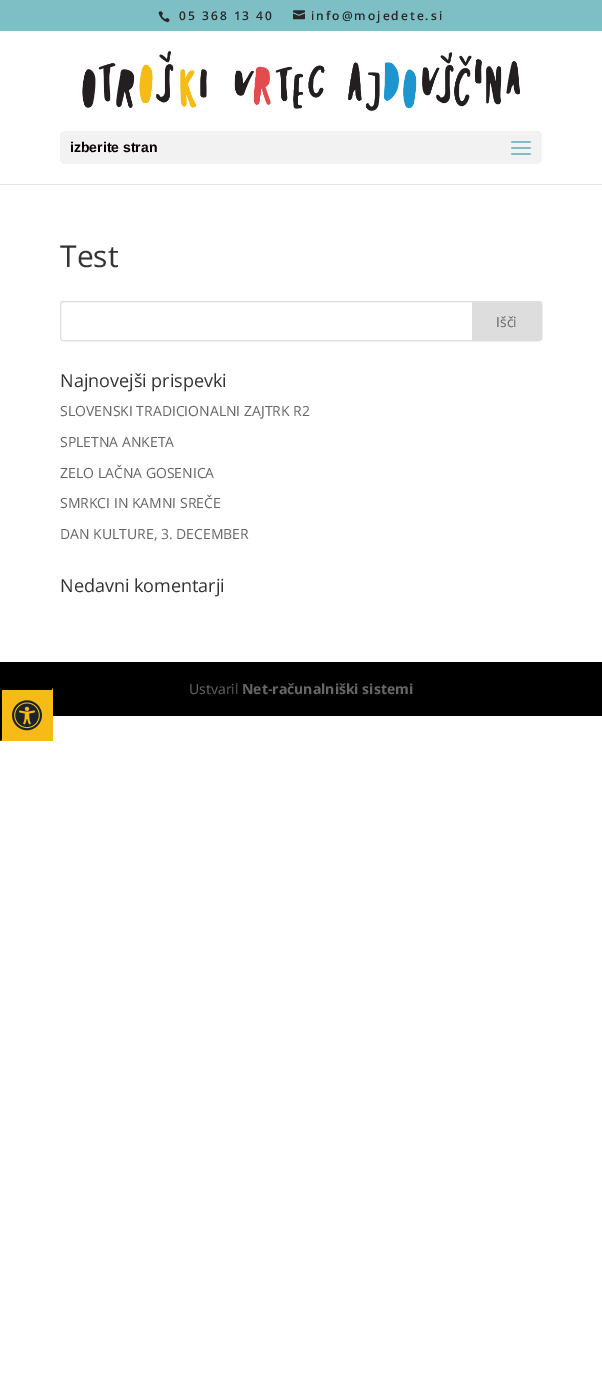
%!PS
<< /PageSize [602 1376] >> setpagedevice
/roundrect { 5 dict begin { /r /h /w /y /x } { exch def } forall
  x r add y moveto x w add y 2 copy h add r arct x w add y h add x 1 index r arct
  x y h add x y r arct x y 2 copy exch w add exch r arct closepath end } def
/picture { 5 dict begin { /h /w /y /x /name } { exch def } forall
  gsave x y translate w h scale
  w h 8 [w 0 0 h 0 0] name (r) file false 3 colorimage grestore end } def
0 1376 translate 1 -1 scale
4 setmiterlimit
1 setgray
0 0 602 1376 rectfill
0.494 0.745 0.773 setrgbcolor
0 0 602 31 rectfill
(img1.rgb) 158 11 12 12 picture
/OpenSans-SemiBold [12 0 0 -12 0 0] selectfont
0.157 setgray
179 20 moveto 2 0 (05 368 13 40) ashow
(img2.rgb) 293 10 12 10 picture
311 20 moveto 2 0 (info@mojedete.si) ashow
0.902 setgray
0 184 602 1 rectfill
(img3.rgb) 82 51 438 60 picture
0.949 setgray
60 131 482 33 5 roundrect fill
/LiberationSans-Bold [14 0 0 -14 0 0] selectfont
0.039 0 0.016 setrgbcolor
70 152 moveto (izberite stran) show
(img4.rgb) 511 141 20 14 picture
/OpenSans-Regular [30 0 0 -30 0 0] selectfont
0.2 setgray
60 267 moveto (Test) show
0.867 setgray
60.5 301.5 481 39 2.5 roundrect stroke
newpath 472.5 301.5 moveto 539 301.5 lineto 540.5 301.5 541.5 302.5 541.5 304 curveto 541.5 338 lineto 541.5 339.5 540.5 340.5 539 340.5 curveto 472.5 340.5 lineto closepath gsave fill grestore
stroke
/OpenSans-Regular [14 0 0 -14 0 0] selectfont
0.4 setgray
496 327 moveto (Išči) show
/OpenSans-Regular [18 0 0 -18 0 0] selectfont
0.2 setgray
60 387 moveto (Najnovejši prispevki) show
/OpenSans-Regular [14 0 0 -14 0 0] selectfont
0.4 setgray
60 416 moveto (SLOVENSKI TRADICIONALNI ZAJTRK R2) show
60 447 moveto (SPLETNA ANKETA) show
60 478 moveto (ZELO LAČNA GOSENICA) show
60 508 moveto (SMRKCI IN KAMNI SREČE) show
60 539 moveto (DAN KULTURE, 3. DECEMBER) show
/OpenSans-Regular [18 0 0 -18 0 0] selectfont
0.2 setgray
60 592 moveto (Nedavni komentarji) show
0 setgray
0 662 602 54 rectfill
/OpenSans-Regular [14 0 0 -14 0 0] selectfont
0.4 setgray
189 694 moveto (Ustvaril) show
/OpenSans-Bold [14 0 0 -14 0 0] selectfont
242 694 moveto (Net-računalniški sistemi) show
0.965 0.733 0.082 setrgbcolor
0 688 53 53 rectfill
0 setgray
newpath 0 688 moveto 53 688 lineto 52 690 lineto 2 690 lineto closepath fill
0.965 0.733 0.082 setrgbcolor
newpath 53 688 moveto 53 741 lineto 52 740 lineto 52 690 lineto closepath fill
0 setgray
newpath 0 741 moveto 0 688 lineto 2 690 lineto 2 740 lineto closepath fill
(img5.rgb) 12 700 30 31 picture
showpage
